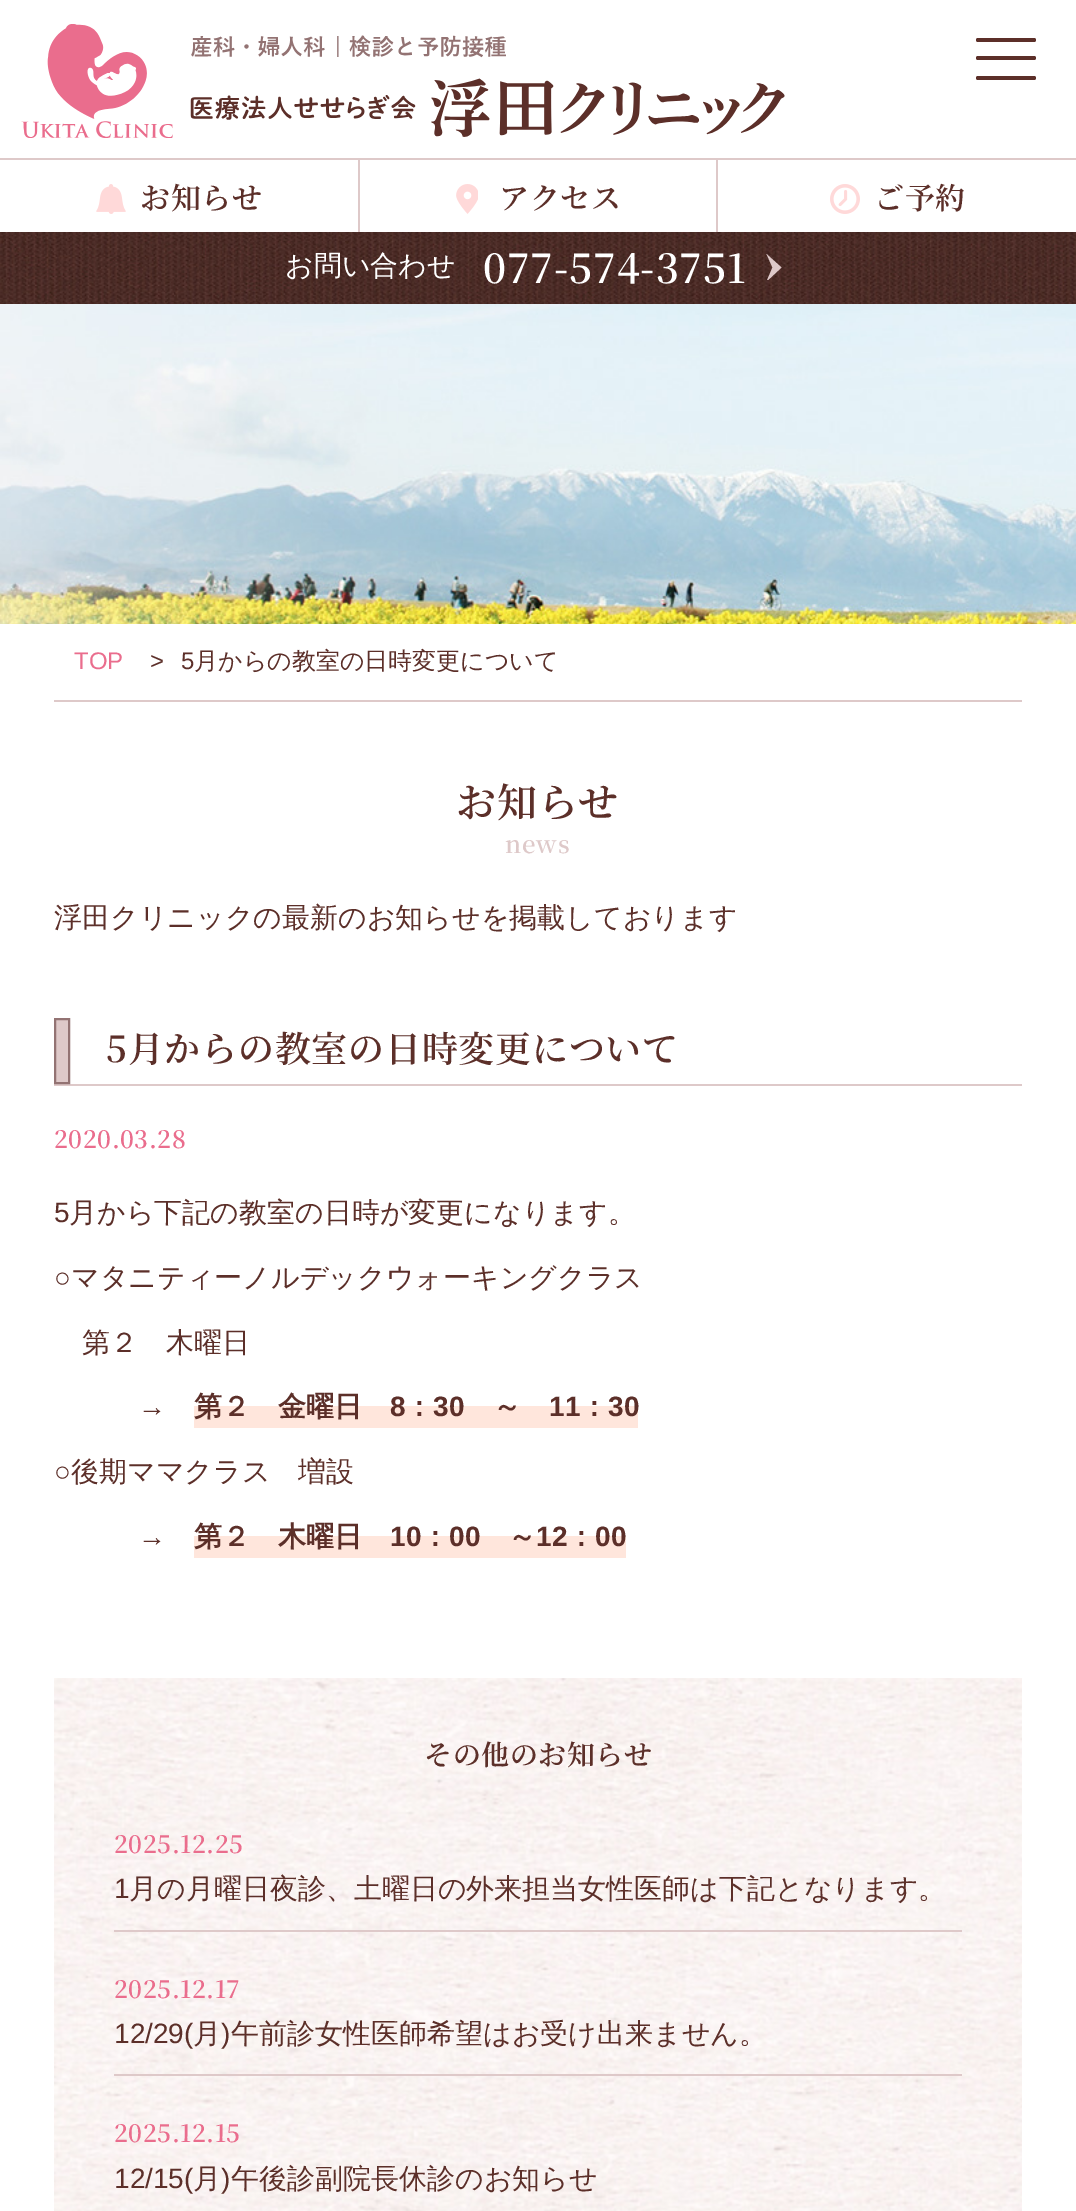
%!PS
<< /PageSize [1076 2211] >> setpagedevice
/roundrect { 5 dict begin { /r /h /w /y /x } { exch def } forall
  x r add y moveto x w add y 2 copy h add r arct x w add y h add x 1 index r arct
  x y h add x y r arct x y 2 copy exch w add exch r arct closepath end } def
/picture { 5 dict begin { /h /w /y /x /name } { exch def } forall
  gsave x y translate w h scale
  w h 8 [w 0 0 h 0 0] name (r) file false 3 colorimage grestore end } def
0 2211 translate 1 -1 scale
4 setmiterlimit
1 setgray
0 0 1076 2211 rectfill
0.361 0.184 0.161 setrgbcolor
976 38 60 4 2 roundrect fill
976 56 60 4 2 roundrect fill
976 76 60 4 2 roundrect fill
(img1.rgb) 21 24 764 114 picture
0.871 0.788 0.788 setrgbcolor
0 158 1076 2 rectfill
(img2.rgb) 96 184 30 30 picture
/NotoSerifJP-ExtraLight [30 0 0 -30 0 0] selectfont
0.361 0.184 0.161 setrgbcolor
140 209 moveto 0.5 0 (お知らせ) ashow
0.871 0.788 0.788 setrgbcolor
358 158 2 74 rectfill
(img3.rgb) 456 184 22 30 picture
0.361 0.184 0.161 setrgbcolor
499 209 moveto 0.5 0 (アクセス) ashow
0.871 0.788 0.788 setrgbcolor
716 158 2 74 rectfill
(img4.rgb) 830 184 30 30 picture
0.361 0.184 0.161 setrgbcolor
874 209 moveto 0.5 0 (ご予約) ashow
(img5.rgb) 0 232 1076 72 picture
/WenQuanYiZenHei-Medium [28 0 0 -28 0 0] selectfont
1 setgray
285 275 moveto (お問い合わせ) show
/NotoSerifJP-ExtraLight [40 0 0 -40 0 0] selectfont
483 283 moveto 0.75 0 (077-574-3751) ashow
gsave
766 254 16 26 rectclip
0.871 0.788 0.788 setrgbcolor
newpath 766.5 254 moveto 781.5 267.5 lineto 766.5 281.5 lineto 772.5 267.5 lineto closepath fill
grestore
(img6.rgb) 0 304 1076 320 picture
0.871 0.788 0.788 setrgbcolor
54 700 968 2 rectfill
/LiberationSans-Regular [24 0 0 -24 0 0] selectfont
0.918 0.427 0.553 setrgbcolor
74 669 moveto (TOP) show
0.361 0.184 0.161 setrgbcolor
150 669 moveto (>) show
181 669 moveto (5) show
/WenQuanYiZenHei-Medium [24 0 0 -24 0 0] selectfont
194 669 moveto (月からの教室の日時変更について) show
/NotoSerifJP-ExtraLight [40 0 0 -40 0 0] selectfont
456 817 moveto 0.75 0 (お知らせ) ashow
/NotoSerifJP-ExtraLight [24 0 0 -24 0 0] selectfont
0.871 0.788 0.788 setrgbcolor
505 853 moveto 0.75 0 (news) ashow
/WenQuanYiZenHei-Medium [28 0 0 -28 0 0] selectfont
0.361 0.184 0.161 setrgbcolor
54 927 moveto (浮田クリニックの最新のお知らせを掲載しております) show
0.871 0.788 0.788 setrgbcolor
54 1084 968 2 rectfill
newpath 55 1019 moveto 69 1019 lineto 69 1083 lineto 55 1083 lineto closepath gsave fill grestore
0.576 0.451 0.451 setrgbcolor
2 setlinewidth
stroke
/NotoSerifJP-ExtraLight [36 0 0 -36 0 0] selectfont
0.361 0.184 0.161 setrgbcolor
106 1062 moveto 0.75 0 (5月からの教室の日時変更について) ashow
/NotoSerifJP-ExtraLight [24 0 0 -24 0 0] selectfont
0.918 0.427 0.553 setrgbcolor
54 1148 moveto 0.5 0 (2020.03.28) ashow
/LiberationSans-Regular [28 0 0 -28 0 0] selectfont
0.361 0.184 0.161 setrgbcolor
54 1222 moveto (5) show
/WenQuanYiZenHei-Medium [28 0 0 -28 0 0] selectfont
69 1222 moveto (月から下記の教室の日時が変更になります。) show
/LiberationSans-Regular [28 0 0 -28 0 0] selectfont
54 1287 moveto (○) show
/WenQuanYiZenHei-Medium [28 0 0 -28 0 0] selectfont
71 1287 moveto (マタニティーノルデックウォーキングクラス) show
82 1352 moveto (第２　木曜日) show
/LiberationSans-Regular [28 0 0 -28 0 0] selectfont
138 1416 moveto (→) show
1 0.902 0.863 setrgbcolor
194 1406 444 22 rectfill
/WenQuanYiZenHei-Bold [28 0 0 -28 0 0] selectfont
0.361 0.184 0.161 setrgbcolor
194 1416 moveto (第２　金曜日) show
/LiberationSans-Bold [28 0 0 -28 0 0] selectfont
390 1416 moveto (8) show
/WenQuanYiZenHei-Bold [28 0 0 -28 0 0] selectfont
405 1416 moveto (：) show
/LiberationSans-Bold [28 0 0 -28 0 0] selectfont
433 1416 moveto (30) show
/WenQuanYiZenHei-Bold [28 0 0 -28 0 0] selectfont
493 1416 moveto (～) show
/LiberationSans-Bold [28 0 0 -28 0 0] selectfont
549 1416 moveto (11) show
/WenQuanYiZenHei-Bold [28 0 0 -28 0 0] selectfont
580 1416 moveto (：) show
/LiberationSans-Bold [28 0 0 -28 0 0] selectfont
608 1416 moveto (30) show
/LiberationSans-Regular [28 0 0 -28 0 0] selectfont
54 1481 moveto (○) show
/WenQuanYiZenHei-Medium [28 0 0 -28 0 0] selectfont
71 1481 moveto (後期ママクラス　増設) show
/LiberationSans-Regular [28 0 0 -28 0 0] selectfont
138 1546 moveto (→) show
1 0.902 0.863 setrgbcolor
194 1536 432 22 rectfill
/WenQuanYiZenHei-Bold [28 0 0 -28 0 0] selectfont
0.361 0.184 0.161 setrgbcolor
194 1546 moveto (第２　木曜日) show
/LiberationSans-Bold [28 0 0 -28 0 0] selectfont
390 1546 moveto (10) show
/WenQuanYiZenHei-Bold [28 0 0 -28 0 0] selectfont
421 1546 moveto (：) show
/LiberationSans-Bold [28 0 0 -28 0 0] selectfont
449 1546 moveto (00) show
/WenQuanYiZenHei-Bold [28 0 0 -28 0 0] selectfont
508 1546 moveto (～) show
/LiberationSans-Bold [28 0 0 -28 0 0] selectfont
536 1546 moveto (12) show
/WenQuanYiZenHei-Bold [28 0 0 -28 0 0] selectfont
567 1546 moveto (：) show
/LiberationSans-Bold [28 0 0 -28 0 0] selectfont
595 1546 moveto (00) show
(img7.rgb) 54 1678 968 533 picture
/NotoSerifJP-ExtraLight [28 0 0 -28 0 0] selectfont
424 1765 moveto 0.5 0 (その他のお知らせ) ashow
0.871 0.788 0.788 setrgbcolor
114 1930 848 2 rectfill
/NotoSerifJP-ExtraLight [24 0 0 -24 0 0] selectfont
0.918 0.427 0.553 setrgbcolor
114 1853 moveto 0.5 0 (2025.12.25) ashow
/LiberationSans-Regular [28 0 0 -28 0 0] selectfont
0.361 0.184 0.161 setrgbcolor
114 1898 moveto (1) show
/WenQuanYiZenHei-Medium [28 0 0 -28 0 0] selectfont
129 1898 moveto (月の月曜日夜診、土曜日の外来担当女性医師は下記となります。) show
0.871 0.788 0.788 setrgbcolor
114 2074 848 2 rectfill
/NotoSerifJP-ExtraLight [24 0 0 -24 0 0] selectfont
0.918 0.427 0.553 setrgbcolor
114 1998 moveto 0.5 0 (2025.12.17) ashow
/LiberationSans-Regular [28 0 0 -28 0 0] selectfont
0.361 0.184 0.161 setrgbcolor
114 2043 moveto (12/29\() show
/WenQuanYiZenHei-Medium [28 0 0 -28 0 0] selectfont
193 2043 moveto (月) show
/LiberationSans-Regular [28 0 0 -28 0 0] selectfont
221 2043 moveto (\)) show
/WenQuanYiZenHei-Medium [28 0 0 -28 0 0] selectfont
231 2043 moveto (午前診女性医師希望はお受け出来ません。) show
/NotoSerifJP-ExtraLight [24 0 0 -24 0 0] selectfont
0.918 0.427 0.553 setrgbcolor
114 2142 moveto 0.5 0 (2025.12.15) ashow
/LiberationSans-Regular [28 0 0 -28 0 0] selectfont
0.361 0.184 0.161 setrgbcolor
114 2188 moveto (12/15\() show
/WenQuanYiZenHei-Medium [28 0 0 -28 0 0] selectfont
193 2188 moveto (月) show
/LiberationSans-Regular [28 0 0 -28 0 0] selectfont
221 2188 moveto (\)) show
/WenQuanYiZenHei-Medium [28 0 0 -28 0 0] selectfont
231 2188 moveto (午後診副院長休診のお知らせ) show
showpage
